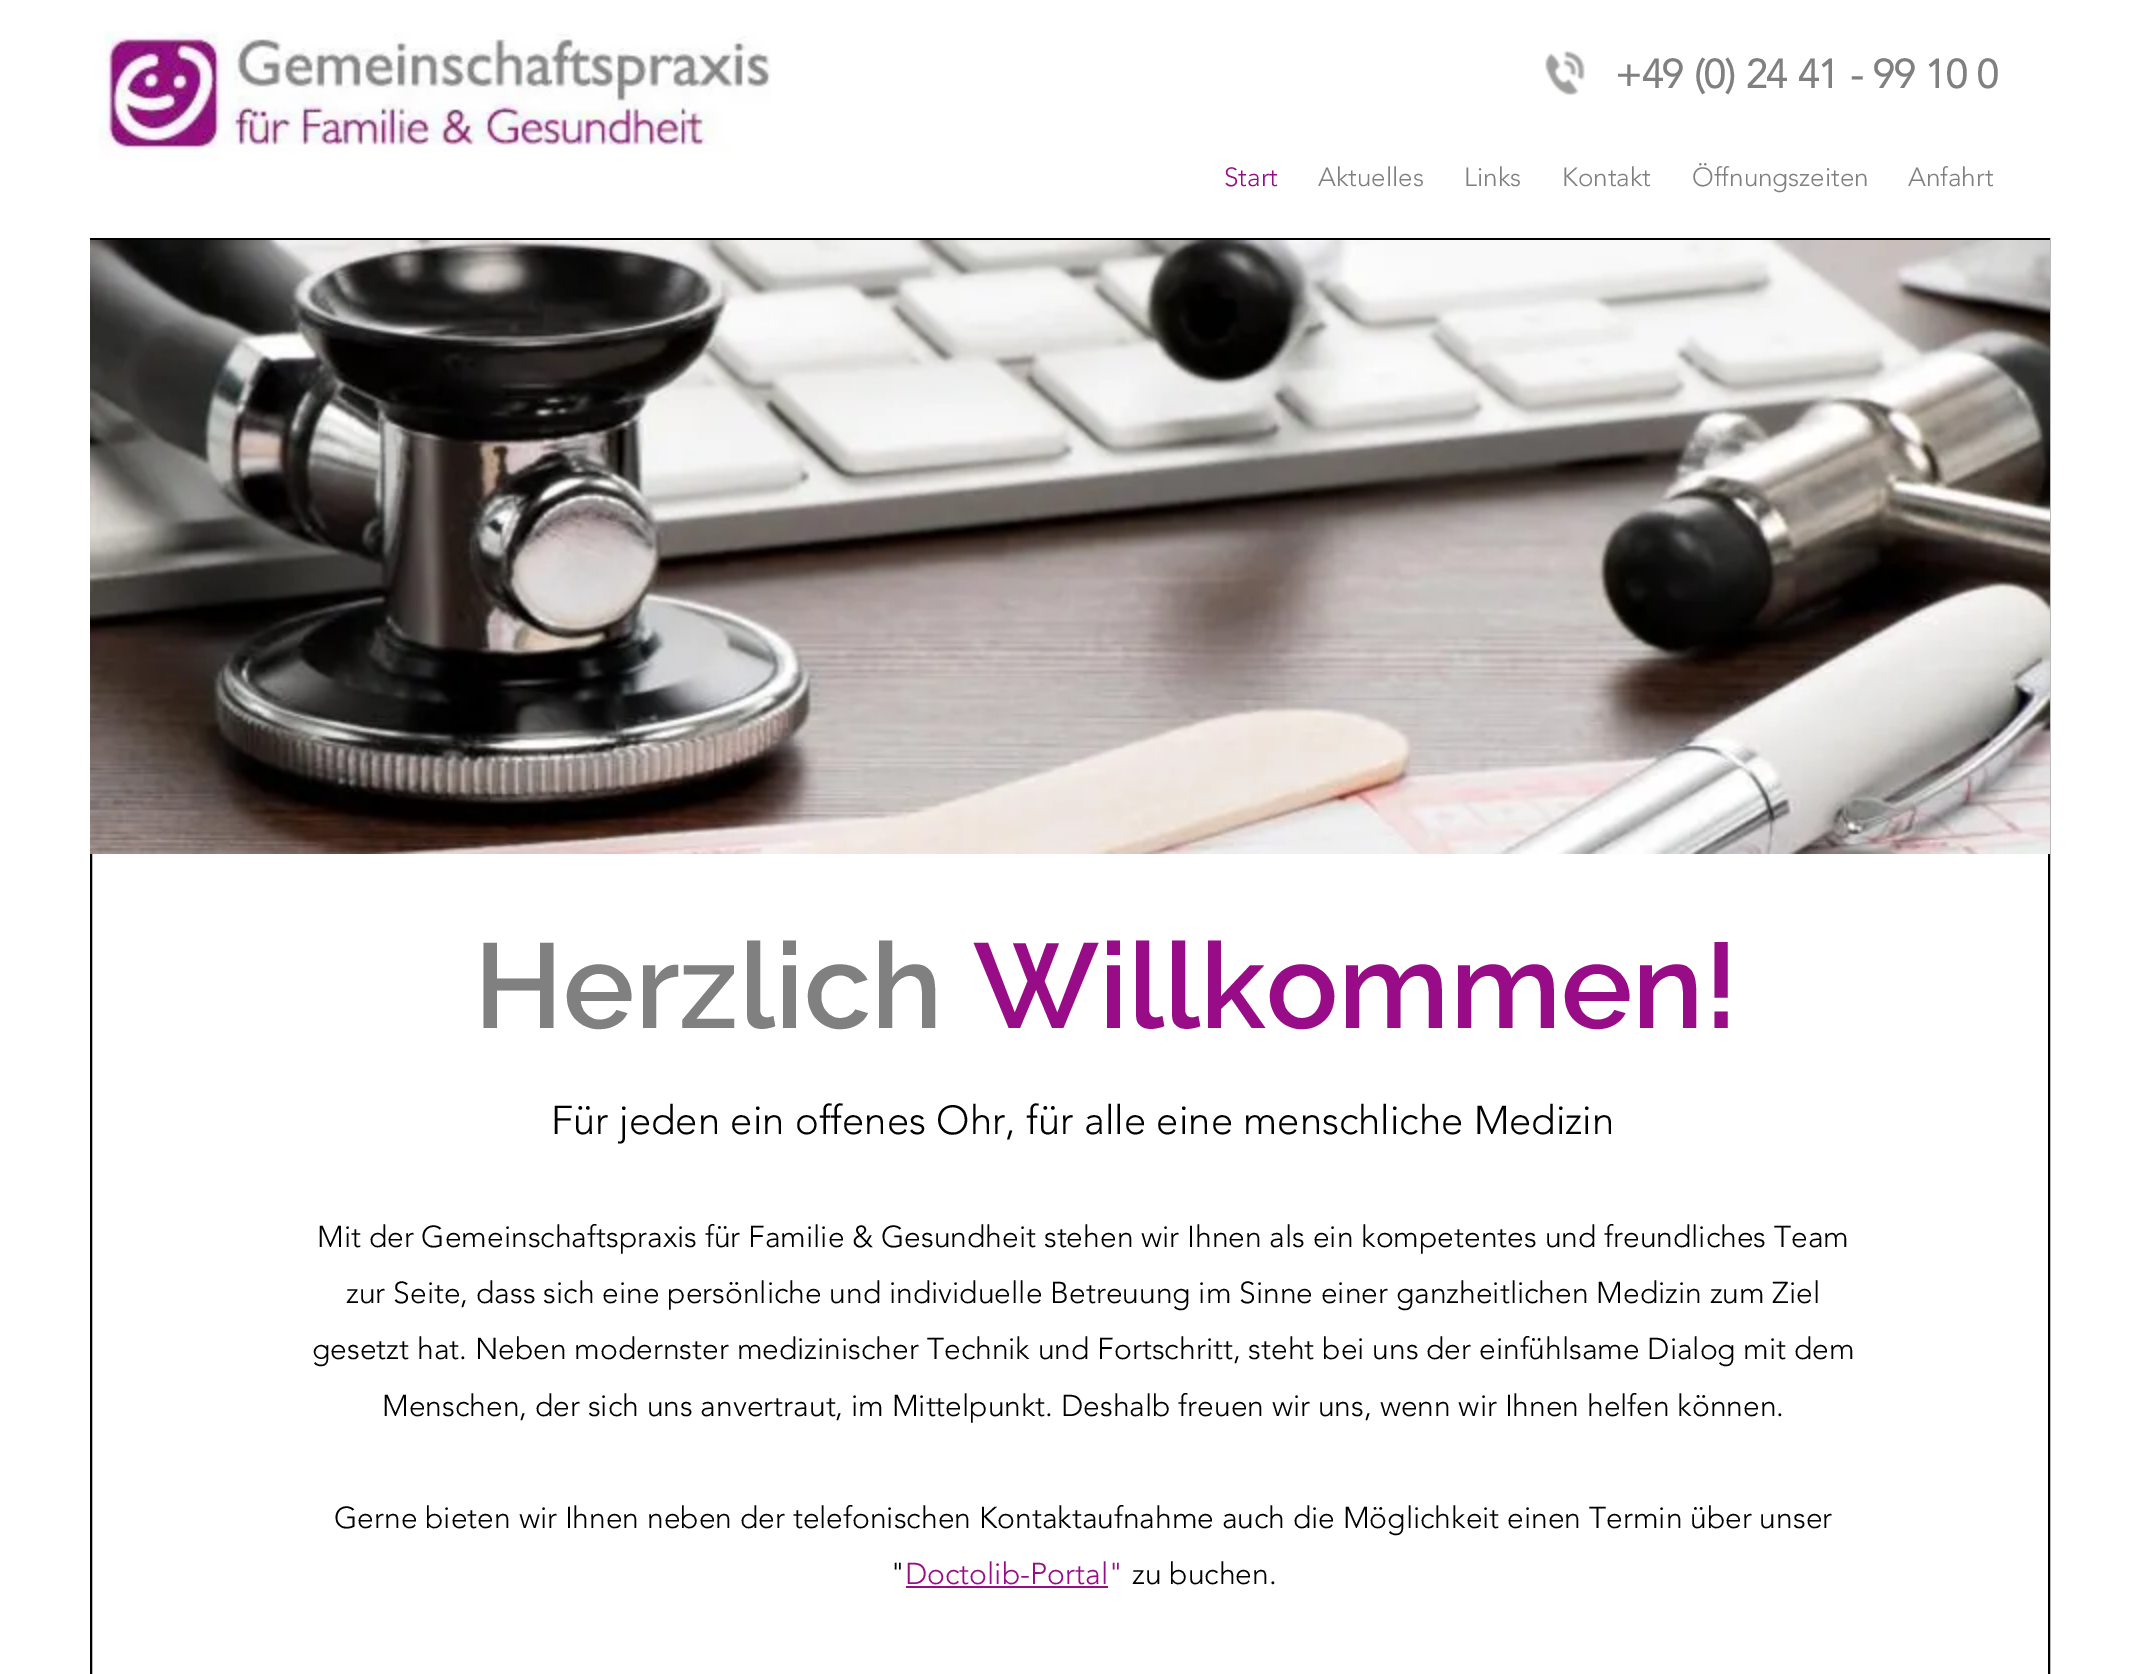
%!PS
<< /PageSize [2138 1674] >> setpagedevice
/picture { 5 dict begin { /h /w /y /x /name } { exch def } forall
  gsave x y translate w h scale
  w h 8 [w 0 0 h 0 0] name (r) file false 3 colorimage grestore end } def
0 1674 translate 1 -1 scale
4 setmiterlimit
1 setgray
0 0 2138 1674 rectfill
(img1.rgb) 98 31 673 129 picture
(img2.rgb) 1545 50 40 46 picture
/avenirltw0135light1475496-Bold [40 0 0 -40 0 0] selectfont
0.502 setgray
1615 88 moveto (+49 \(0\) 24 41 - 99 10 0) show
/avenirltw0135light1475496-Light [26 0 0 -26 0 0] selectfont
0.596 0.047 0.529 setrgbcolor
1224 186 moveto (Start) show
0.502 setgray
1318 186 moveto (Aktuelles) show
1464 186 moveto (Links) show
1562 186 moveto (Kontakt) show
1692 186 moveto (Öffnungszeiten) show
1908 186 moveto (Anfahrt) show
0 setgray
2 setlinewidth
91 239 1958 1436 rectstroke
(img3.rgb) 90 240 1960 614 picture
/Raleway-SemiBold [120 0 0 -120 0 0] selectfont
0.502 setgray
474 1028 moveto (Herzlich) show
0.596 0.047 0.529 setrgbcolor
973 1028 moveto (Willkommen!) show
/avenirltw0135light1475496-Light [40 0 0 -40 0 0] selectfont
0 setgray
551 1134 moveto (Für jeden ein offenes Ohr, für alle eine menschliche Medizin) show
/avenirltw0135light1475496-Light [30 0 0 -30 0 0] selectfont
317 1247 moveto (Mit der Gemeinschaftspraxis für Familie & Gesundheit stehen wir Ihnen als ein kompetentes und freundliches Team) show
346 1303 moveto (zur Seite, dass sich eine persönliche und individuelle Betreuung im Sinne einer ganzheitlichen Medizin zum Ziel) show
312 1359 moveto (gesetzt hat. Neben modernster medizinischer Technik und Fortschritt, steht bei uns der einfühlsame Dialog mit dem) show
382 1416 moveto (Menschen, der sich uns anvertraut, im Mittelpunkt. Deshalb freuen wir uns, wenn wir Ihnen helfen können.) show
334 1528 moveto (Gerne bieten wir Ihnen neben der telefonischen Kontaktaufnahme auch die Möglichkeit einen Termin über unser) show
890 1584 moveto (") show
0.596 0.047 0.529 setrgbcolor
905 1584 moveto (Doctolib-Portal") show
906 1586 202 2 rectfill
0 setgray
1132 1584 moveto (zu buchen.) show
showpage
